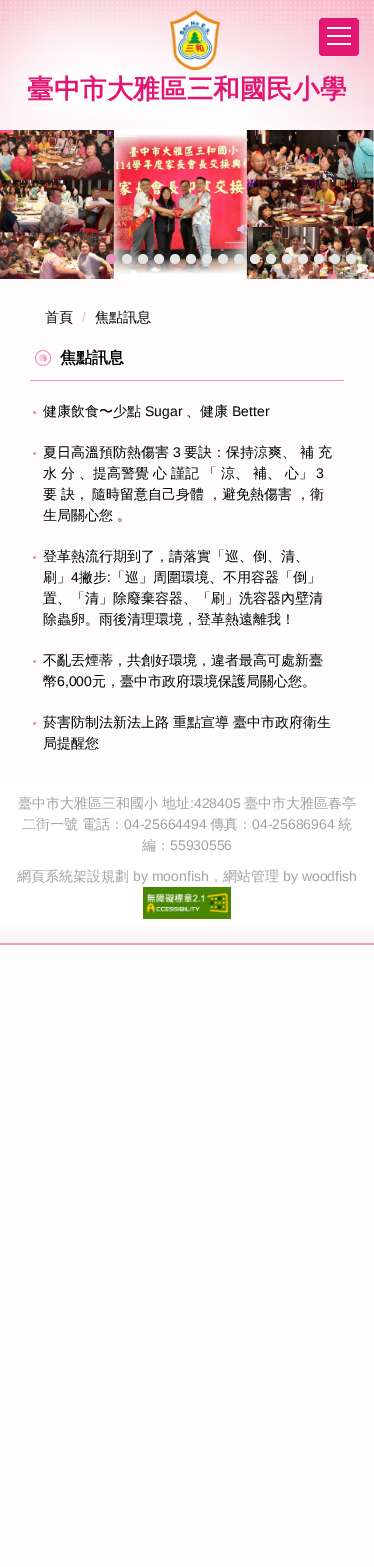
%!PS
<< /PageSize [374 1567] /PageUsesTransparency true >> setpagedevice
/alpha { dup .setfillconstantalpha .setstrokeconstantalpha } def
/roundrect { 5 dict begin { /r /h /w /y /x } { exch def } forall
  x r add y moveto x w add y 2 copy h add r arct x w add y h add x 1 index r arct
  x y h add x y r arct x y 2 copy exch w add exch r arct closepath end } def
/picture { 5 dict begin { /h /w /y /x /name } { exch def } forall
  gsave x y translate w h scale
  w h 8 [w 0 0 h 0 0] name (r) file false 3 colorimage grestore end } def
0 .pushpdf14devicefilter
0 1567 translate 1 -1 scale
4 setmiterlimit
0.996 0.988 0.992 setrgbcolor
0 0 374 1567 rectfill
(img1.rgb) 0 0 374 173 picture
0.89 0.086 0.451 setrgbcolor
319 18 40 38 4 roundrect fill
1 setgray
327 35 24 2 rectfill
327 27 24 2 rectfill
327 43 24 2 rectfill
(img2.rgb) 170 10 50 60 picture
/WenQuanYiZenHei-Bold [26.6 0 0 -26.6 0 0] selectfont
0.89 0.086 0.451 setrgbcolor
27 98 moveto (臺中市大雅區三和國民小學) show
(img3.rgb) 0 130 374 149 picture
0.19 alpha
0 setgray
newpath 25 215 moveto 14.5 204.5 lineto 17 204.5 lineto 26.5 213.5 lineto closepath fill
newpath 14.5 204.5 moveto 25 193.5 lineto 26.5 195 lineto 17 204.5 lineto closepath fill
newpath 349 193.5 moveto 359.5 204.5 lineto 357 204.5 lineto 347.5 195 lineto closepath fill
newpath 359.5 204.5 moveto 349 215 lineto 347.5 213.5 lineto 357 204.5 lineto closepath fill
1 alpha
0.906 0.569 0.737 setrgbcolor
newpath 111 259 5 0 360 arc closepath fill
0.898 setgray
newpath 127 259 5 0 360 arc closepath fill
newpath 143 259 5 0 360 arc closepath fill
newpath 159 259 5 0 360 arc closepath fill
newpath 175 259 5 0 360 arc closepath fill
newpath 191 259 5 0 360 arc closepath fill
newpath 207 259 5 0 360 arc closepath fill
newpath 223 259 5 0 360 arc closepath fill
newpath 239 259 5 0 360 arc closepath fill
newpath 255 259 5 0 360 arc closepath fill
newpath 271 259 5 0 360 arc closepath fill
newpath 287 259 5 0 360 arc closepath fill
newpath 303 259 5 0 360 arc closepath fill
newpath 319 259 5 0 360 arc closepath fill
newpath 335 259 5 0 360 arc closepath fill
newpath 351 259 5 0 360 arc closepath fill
/WenQuanYiZenHei-Medium [14 0 0 -14 0 0] selectfont
0 setgray
45 322 moveto (首頁) show
/LiberationSans-Regular [14 0 0 -14 0 0] selectfont
0.8 setgray
82 322 moveto (/) show
/WenQuanYiZenHei-Medium [14 0 0 -14 0 0] selectfont
0 setgray
95 322 moveto (焦點訊息) show
0.925 0.561 0.792 setrgbcolor
30 380 314 1 rectfill
(img4.rgb) 35 350 16 16 picture
/WenQuanYiZenHei-Bold [16 0 0 -16 0 0] selectfont
0 setgray
60 363 moveto (焦點訊息) show
0.91 0.588 0.749 setrgbcolor
newpath 34.5 412.5 1.5 0 360 arc closepath fill
/WenQuanYiZenHei-Medium [14 0 0 -14 0 0] selectfont
0 setgray
43 416 moveto (健康飲食〜少點) show
/LiberationSans-Regular [14 0 0 -14 0 0] selectfont
145 416 moveto (Sugar) show
/WenQuanYiZenHei-Medium [14 0 0 -14 0 0] selectfont
186 416 moveto (、健康) show
/LiberationSans-Regular [14 0 0 -14 0 0] selectfont
232 416 moveto (Better) show
0.91 0.588 0.749 setrgbcolor
newpath 34.5 453.5 1.5 0 360 arc closepath fill
/WenQuanYiZenHei-Medium [14 0 0 -14 0 0] selectfont
0 setgray
43 457 moveto (夏日高溫預防熱傷害) show
/LiberationSans-Regular [14 0 0 -14 0 0] selectfont
173 457 moveto (3) show
/WenQuanYiZenHei-Medium [14 0 0 -14 0 0] selectfont
184 457 moveto (要訣：保持涼爽、 補 充) show
43 478 moveto -0.25 0 32 (水 分 、提高警覺 心 謹記 「 涼、 補、 心」) widthshow
/LiberationSans-Regular [14 0 0 -14 0 0] selectfont
316 478 moveto (3) show
/WenQuanYiZenHei-Medium [14 0 0 -14 0 0] selectfont
43 499 moveto -0.5 0 32 (要 訣， 隨時留意自己身體 ，避免熱傷害 ，衛) widthshow
43 520 moveto -0.5 0 32 (生局關心您 。) widthshow
0.91 0.588 0.749 setrgbcolor
newpath 34.5 557.5 1.5 0 360 arc closepath fill
0 setgray
43 561 moveto (登革熱流行期到了，請落實「巡、倒、清、) show
43 582 moveto (刷」) show
/LiberationSans-Regular [14 0 0 -14 0 0] selectfont
71 582 moveto (4) show
/WenQuanYiZenHei-Medium [14 0 0 -14 0 0] selectfont
79 582 moveto (撇步) show
/LiberationSans-Regular [14 0 0 -14 0 0] selectfont
107 582 moveto (:) show
/WenQuanYiZenHei-Medium [14 0 0 -14 0 0] selectfont
111 582 moveto (「巡」周圍環境、不用容器「倒」) show
43 603 moveto (置、「清」除廢棄容器、「刷」洗容器內壁清) show
43 624 moveto (除蟲卵。雨後清理環境，登革熱遠離我！) show
0.91 0.588 0.749 setrgbcolor
newpath 34.5 661.5 1.5 0 360 arc closepath fill
0 setgray
43 665 moveto (不亂丟煙蒂，共創好環境，違者最高可處新臺) show
43 686 moveto (幣) show
/LiberationSans-Regular [14 0 0 -14 0 0] selectfont
57 686 moveto (6,000) show
/WenQuanYiZenHei-Medium [14 0 0 -14 0 0] selectfont
92 686 moveto (元，臺中市政府環境保護局關心您。) show
0.91 0.588 0.749 setrgbcolor
newpath 34.5 723.5 1.5 0 360 arc closepath fill
0 setgray
43 727 moveto -0.5 0 32 (菸害防制法新法上路 重點宣導) widthshow
233 727 moveto (臺中市政府衛生) show
43 748 moveto (局提醒您) show
1 setgray
0 779 374 164 rectfill
(img5.rgb) 0 926 374 17 picture
0.933 0.608 0.749 setrgbcolor
0 943 374 2 rectfill
0.639 setgray
18 808 moveto (臺中市大雅區三和國小 地址) show
/LiberationSans-Regular [14 0 0 -14 0 0] selectfont
190 808 moveto (:428405) show
/WenQuanYiZenHei-Medium [14 0 0 -14 0 0] selectfont
244 808 moveto (臺中市大雅區春亭) show
22 829 moveto (二街一號 電話：) show
/LiberationSans-Regular [14 0 0 -14 0 0] selectfont
124 829 moveto (04-25664494) show
/WenQuanYiZenHei-Medium [14 0 0 -14 0 0] selectfont
210 829 moveto (傳真：) show
/LiberationSans-Regular [14 0 0 -14 0 0] selectfont
252 829 moveto (04-25686964) show
/WenQuanYiZenHei-Medium [14 0 0 -14 0 0] selectfont
338 829 moveto (統) show
142 850 moveto (編：) show
/LiberationSans-Regular [14 0 0 -14 0 0] selectfont
170 850 moveto (55930556) show
/WenQuanYiZenHei-Medium [14 0 0 -14 0 0] selectfont
17 881 moveto (網頁系統架設規劃) show
/LiberationSans-Regular [14 0 0 -14 0 0] selectfont
133 881 moveto (by moonfish) show
/WenQuanYiZenHei-Medium [14 0 0 -14 0 0] selectfont
209 881 moveto (，網站管理) show
/LiberationSans-Regular [14 0 0 -14 0 0] selectfont
283 881 moveto (by woodfish) show
(img6.rgb) 143 887 88 32 picture
.poppdf14devicefilter showpage
